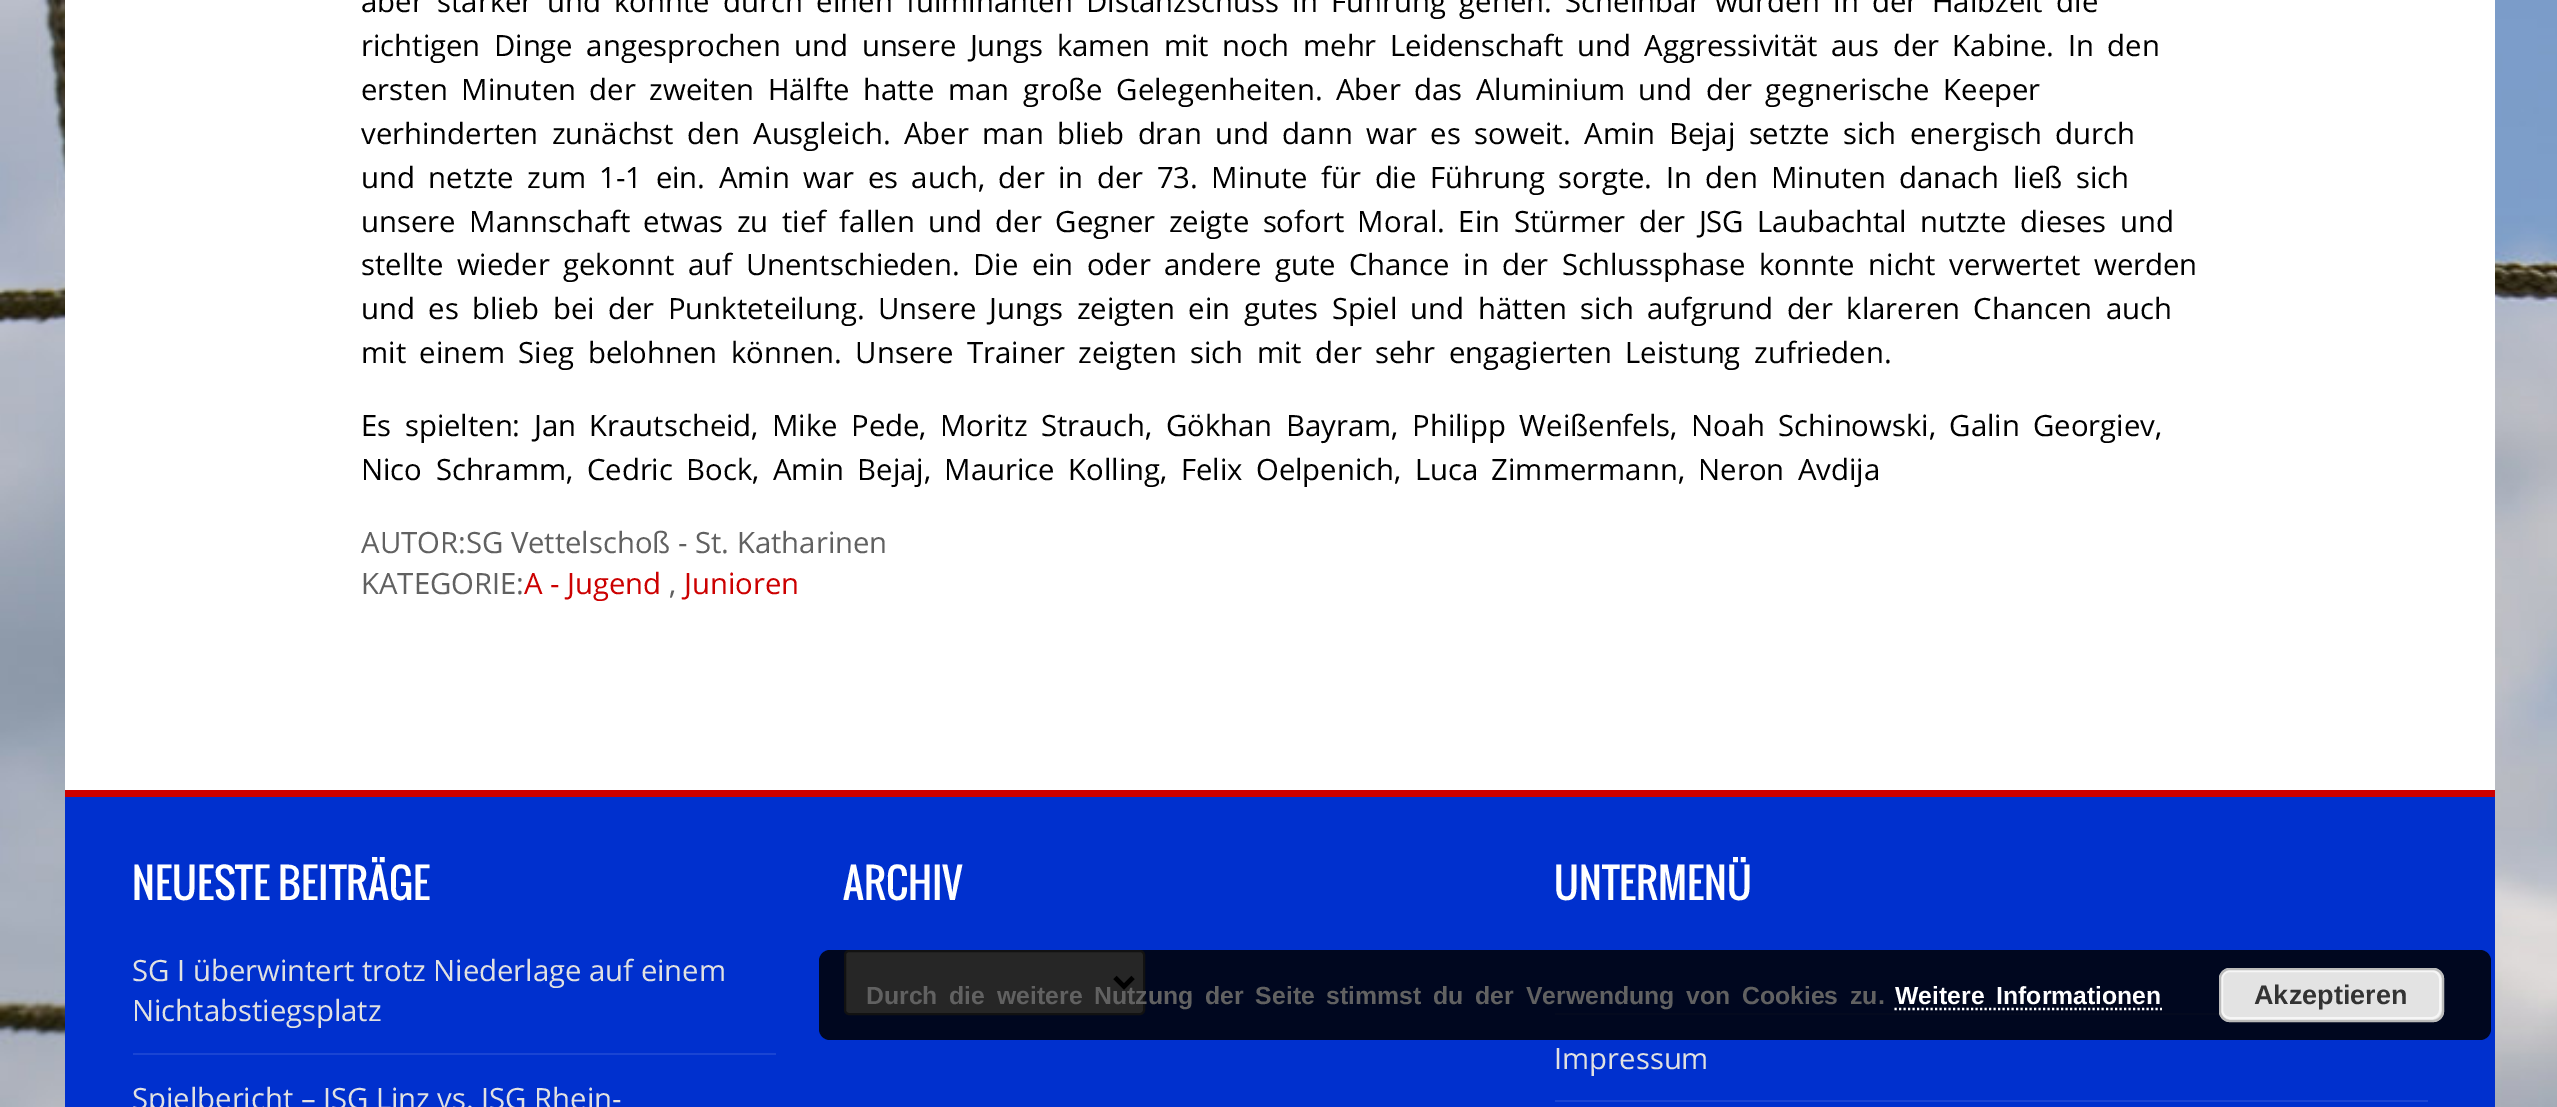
%!PS
<< /PageSize [2557 1107] /PageUsesTransparency true >> setpagedevice
/alpha { dup .setfillconstantalpha .setstrokeconstantalpha } def
/roundrect { 5 dict begin { /r /h /w /y /x } { exch def } forall
  x r add y moveto x w add y 2 copy h add r arct x w add y h add x 1 index r arct
  x y h add x y r arct x y 2 copy exch w add exch r arct closepath end } def
/picture { 5 dict begin { /h /w /y /x /name } { exch def } forall
  gsave x y translate w h scale
  w h 8 [w 0 0 h 0 0] name (r) file false 3 colorimage grestore end } def
0 .pushpdf14devicefilter
0 1107 translate 1 -1 scale
4 setmiterlimit
1 setgray
0 0 2557 1107 rectfill
(img1.rgb) 0 0 2557 1107 picture
65 0 2430 790 rectfill
/OpenSans-Regular [29.25 0 0 -29.25 0 0] selectfont
0 setgray
361 12 moveto 5.9 0 32 (aber stärker und konnte durch einen fulminanten Distanzschuss in Führung gehen. Scheinbar wurden in der Halbzeit die) widthshow
361 56 moveto 5.9 0 32 (richtigen Dinge angesprochen und unsere Jungs kamen mit noch mehr Leidenschaft und Aggressivität aus der Kabine. In den) widthshow
361 100 moveto 5.9 0 32 (ersten Minuten der zweiten Hälfte hatte man große Gelegenheiten. Aber das Aluminium und der gegnerische Keeper) widthshow
361 144 moveto 5.9 0 32 (verhinderten zunächst den Ausgleich. Aber man blieb dran und dann war es soweit. Amin Bejaj setzte sich energisch durch) widthshow
361 188 moveto 5.9 0 32 (und netzte zum 1-1 ein. Amin war es auch, der in der 73. Minute für die Führung sorgte. In den Minuten danach ließ sich) widthshow
361 232 moveto 5.9 0 32 (unsere Mannschaft etwas zu tief fallen und der Gegner zeigte sofort Moral. Ein Stürmer der JSG Laubachtal nutzte dieses und) widthshow
361 275 moveto 5.9 0 32 (stellte wieder gekonnt auf Unentschieden. Die ein oder andere gute Chance in der Schlussphase konnte nicht verwertet werden) widthshow
361 319 moveto 5.9 0 32 (und es blieb bei der Punkteteilung. Unsere Jungs zeigten ein gutes Spiel und hätten sich aufgrund der klareren Chancen auch) widthshow
361 363 moveto 5.9 0 32 (mit einem Sieg belohnen können. Unsere Trainer zeigten sich mit der sehr engagierten Leistung zufrieden.) widthshow
361 436 moveto 5.9 0 32 (Es spielten: Jan Krautscheid, Mike Pede, Moritz Strauch, Gökhan Bayram, Philipp Weißenfels, Noah Schinowski, Galin Georgiev,) widthshow
361 480 moveto 5.9 0 32 (Nico Schramm, Cedric Bock, Amin Bejaj, Maurice Kolling, Felix Oelpenich, Luca Zimmermann, Neron Avdija) widthshow
0.38 setgray
361 553 moveto (AUTOR:SG Vettelschoß - St. Katharinen) show
361 594 moveto (KATEGORIE:) show
0.8 0 0 setrgbcolor
524 594 moveto (A - Jugend) show
0.38 setgray
669 594 moveto (,) show
0.8 0 0 setrgbcolor
684 594 moveto (Junioren) show
0 0.188 0.808 setrgbcolor
65 797 2430 310 rectfill
0.8 0 0 setrgbcolor
65 790 2430 7 rectfill
/Oswald-Regular [40.5 0 0 -40.5 0 0] selectfont
1 setgray
132 900 moveto (NEUESTE BEITRÄGE) show
0.102 0.271 0.827 setrgbcolor
133 1053 643 2 rectfill
/OpenSans-Regular [29.25 0 0 -29.25 0 0] selectfont
0.882 setgray
132 981 moveto (SG I überwintert trotz Niederlage auf einem) show
132 1021 moveto (Nichtabstiegsplatz) show
132 1109 moveto (Spielbericht – JSG Linz vs. JSG Rhein-) show
/Oswald-Regular [40.5 0 0 -40.5 0 0] selectfont
1 setgray
843 900 moveto (ARCHIV) show
845 951 299 63 4 roundrect gsave fill grestore
0.463 setgray
2 setlinewidth
stroke
0 setgray
4.5 setlinewidth
newpath 1115 977.5 moveto 1124 986.5 lineto 1133 977.5 lineto stroke
1 setgray
1554 900 moveto (UNTERMENÜ) show
0.102 0.271 0.827 setrgbcolor
1555 1013 665 2 rectfill
1555 1100 873 2 rectfill
/OpenSans-Regular [29.25 0 0 -29.25 0 0] selectfont
0.882 setgray
1554 1069 moveto (Impressum) show
0.85 alpha
0 setgray
819 950 1672 90 11 roundrect fill
/LiberationSans-Bold [24.75 0 0 -24.75 0 0] selectfont
1 alpha
0.38 setgray
866 1004 moveto 5 0 32 (Durch die weitere Nutzung der Seite stimmst du der Verwendung von Cookies zu.) widthshow
1 setgray
1895 1004 moveto 5 0 32 (Weitere Informationen) widthshow
2.2 setlinewidth
[2.25 2.25] 0 setdash
newpath 1894.5 1009 moveto 2162 1009 lineto stroke
0.89 setgray
2219 968 225 54 11 roundrect fill
0.965 setgray
2 setlinewidth
[] 0 setdash
2222 971 218 47 8 roundrect stroke
0.733 setgray
2220 969 223 52 10 roundrect stroke
/LiberationSans-Bold [27 0 0 -27 0 0] selectfont
0.2 setgray
2254 1004 moveto (Akzeptieren) show
.poppdf14devicefilter showpage
